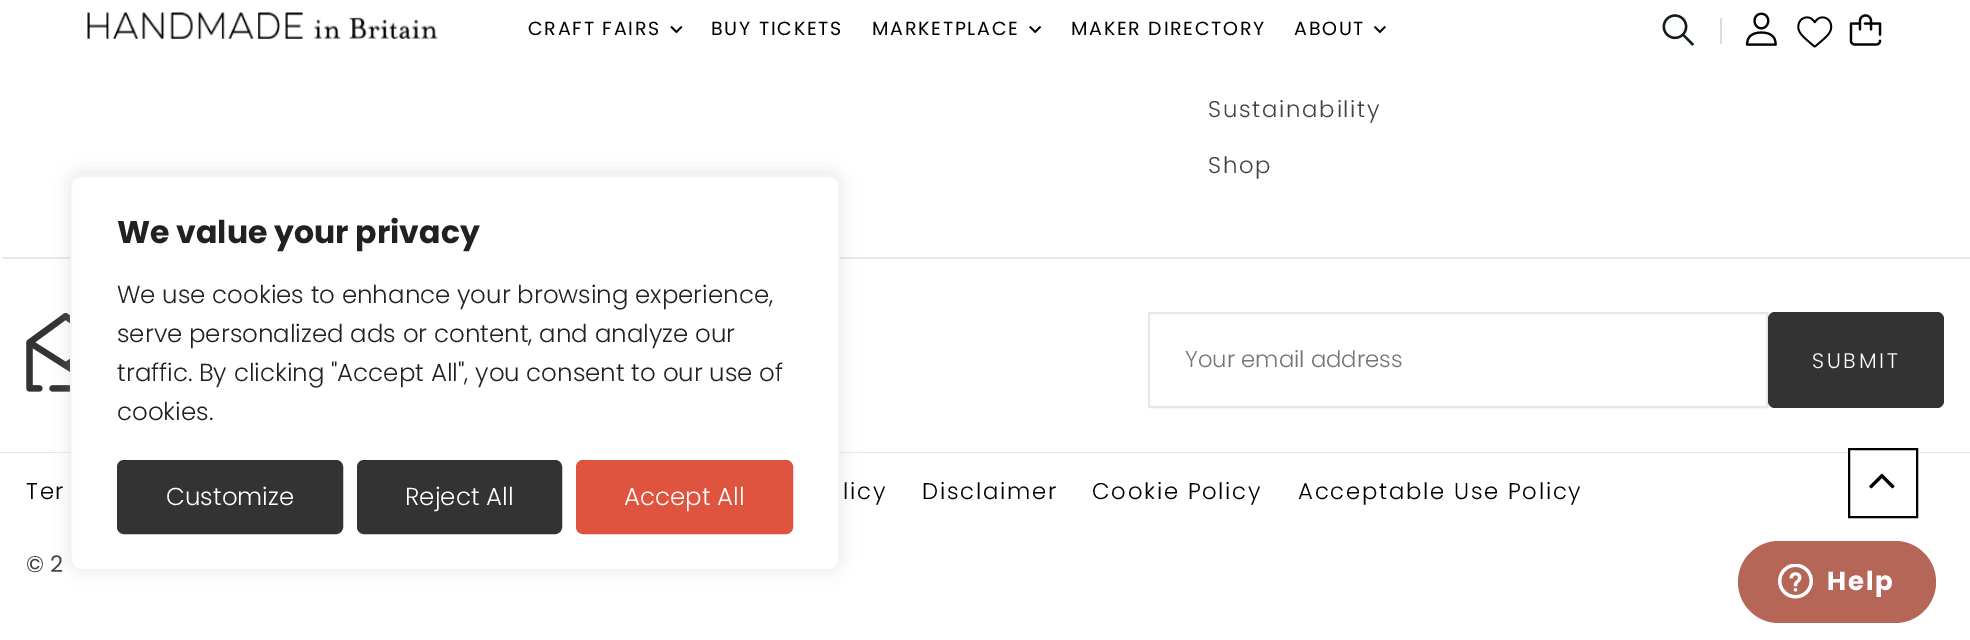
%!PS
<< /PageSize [1970 640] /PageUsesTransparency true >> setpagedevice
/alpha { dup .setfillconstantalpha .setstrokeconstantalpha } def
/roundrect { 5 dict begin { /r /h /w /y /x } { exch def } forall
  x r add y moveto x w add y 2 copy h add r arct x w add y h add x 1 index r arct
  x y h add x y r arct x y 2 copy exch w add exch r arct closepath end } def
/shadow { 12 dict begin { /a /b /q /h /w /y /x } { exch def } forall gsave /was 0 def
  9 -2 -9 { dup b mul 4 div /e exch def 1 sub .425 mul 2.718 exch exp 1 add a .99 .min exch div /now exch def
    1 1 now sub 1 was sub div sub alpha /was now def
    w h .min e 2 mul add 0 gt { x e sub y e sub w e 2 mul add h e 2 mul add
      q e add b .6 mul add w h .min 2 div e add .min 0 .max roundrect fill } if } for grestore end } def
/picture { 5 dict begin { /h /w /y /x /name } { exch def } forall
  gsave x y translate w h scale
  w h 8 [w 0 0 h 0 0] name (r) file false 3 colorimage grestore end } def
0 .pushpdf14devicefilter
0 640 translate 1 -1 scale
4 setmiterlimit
1 setgray
0 0 1970 640 rectfill
(img1.rgb) 87 12 351 27 picture
/Poppins-Regular [19 0 0 -19 0 0] selectfont
0 setgray
528 35 moveto 1.75 0 (CRAFT FAIRS) ashow
(img2.rgb) 670 25 13 9 picture
711 35 moveto 1.75 0 (BUY TICKETS) ashow
872 35 moveto 1.75 0 (MARKETPLACE) ashow
(img3.rgb) 1029 25 13 9 picture
1071 35 moveto 1.75 0 (MAKER DIRECTORY) ashow
1294 35 moveto 1.75 0 (ABOUT) ashow
(img4.rgb) 1373 25 13 9 picture
(img5.rgb) 1662 14 32 32 picture
0.867 setgray
1720 18 2 26 rectfill
(img6.rgb) 1745 12 32 34 picture
(img7.rgb) 1797 16 36 32 picture
(img8.rgb) 1849 14 33 32 picture
/Poppins-Light [22.75 0 0 -22.75 0 0] selectfont
0.259 setgray
1208 117 moveto 1.75 0 (Sustainability) ashow
1208 173 moveto 1.75 0 (Shop) ashow
0.906 setgray
2 257 1968 2 rectfill
0 452 1970 1 rectfill
(img9.rgb) 26 312 44 80 picture
2 setlinewidth
1149 313 618 94 rectstroke
0.459 setgray
1185 367 moveto (Your email address) show
0.2 setgray
1768 312 176 96 7 roundrect fill
/Poppins-Light [21 0 0 -21 0 0] selectfont
1 setgray
1812 368 moveto 2.75 0 (SUBMIT) ashow
/Poppins-Light [22.75 0 0 -22.75 0 0] selectfont
0 setgray
26 499 moveto 1.75 0 (Ter) ashow
843 499 moveto 1.75 0 (licy) ashow
922 499 moveto 1.75 0 (Disclaimer) ashow
1092 499 moveto 1.75 0 (Cookie Policy) ashow
1298 499 moveto 1.75 0 (Acceptable Use Policy) ashow
/Poppins-Regular [22.75 0 0 -22.75 0 0] selectfont
0.259 setgray
26 572 moveto (© 2) show
0.675 0.671 0.671 setrgbcolor
70 173 770 396 11 9 0.3 shadow
1 setgray
71 176 768 394 10 roundrect gsave fill grestore
0.957 setgray
stroke
/Poppins-Bold [31.5 0 0 -31.5 0 0] selectfont
0.129 setgray
117 243 moveto (We value your privacy) show
/Poppins-Light [24.5 0 0 -24.5 0 0] selectfont
117 303 moveto (We use cookies to enhance your browsing experience,) show
117 342 moveto (serve personalized ads or content, and analyze our) show
117 381 moveto (traffic. By clicking "Accept All", you consent to our use of) show
117 420 moveto (cookies.) show
0.2 setgray
119 462 222 70 5 roundrect gsave fill grestore
4 setlinewidth
stroke
1 setgray
166 505 moveto (Customize) show
0.2 setgray
359 462 201 70 5 roundrect gsave fill grestore
stroke
1 setgray
405 505 moveto (Reject All) show
0.871 0.329 0.243 setrgbcolor
578 462 213 70 5 roundrect gsave fill grestore
stroke
1 setgray
624 505 moveto (Accept All) show
1850 452 66 1 rectfill
0 setgray
2 setlinewidth
1849 449 68 68 rectstroke
(img10.rgb) 1869 473 26 16 picture
0.71 0.4 0.341 setrgbcolor
1738 541 198 82 41 roundrect fill
(img11.rgb) 1778 564 35 35 picture
/Poppins-Bold [26 0 0 -26 0 0] selectfont
1 setgray
1827 590 moveto 1.75 0 (Help) ashow
.poppdf14devicefilter showpage
